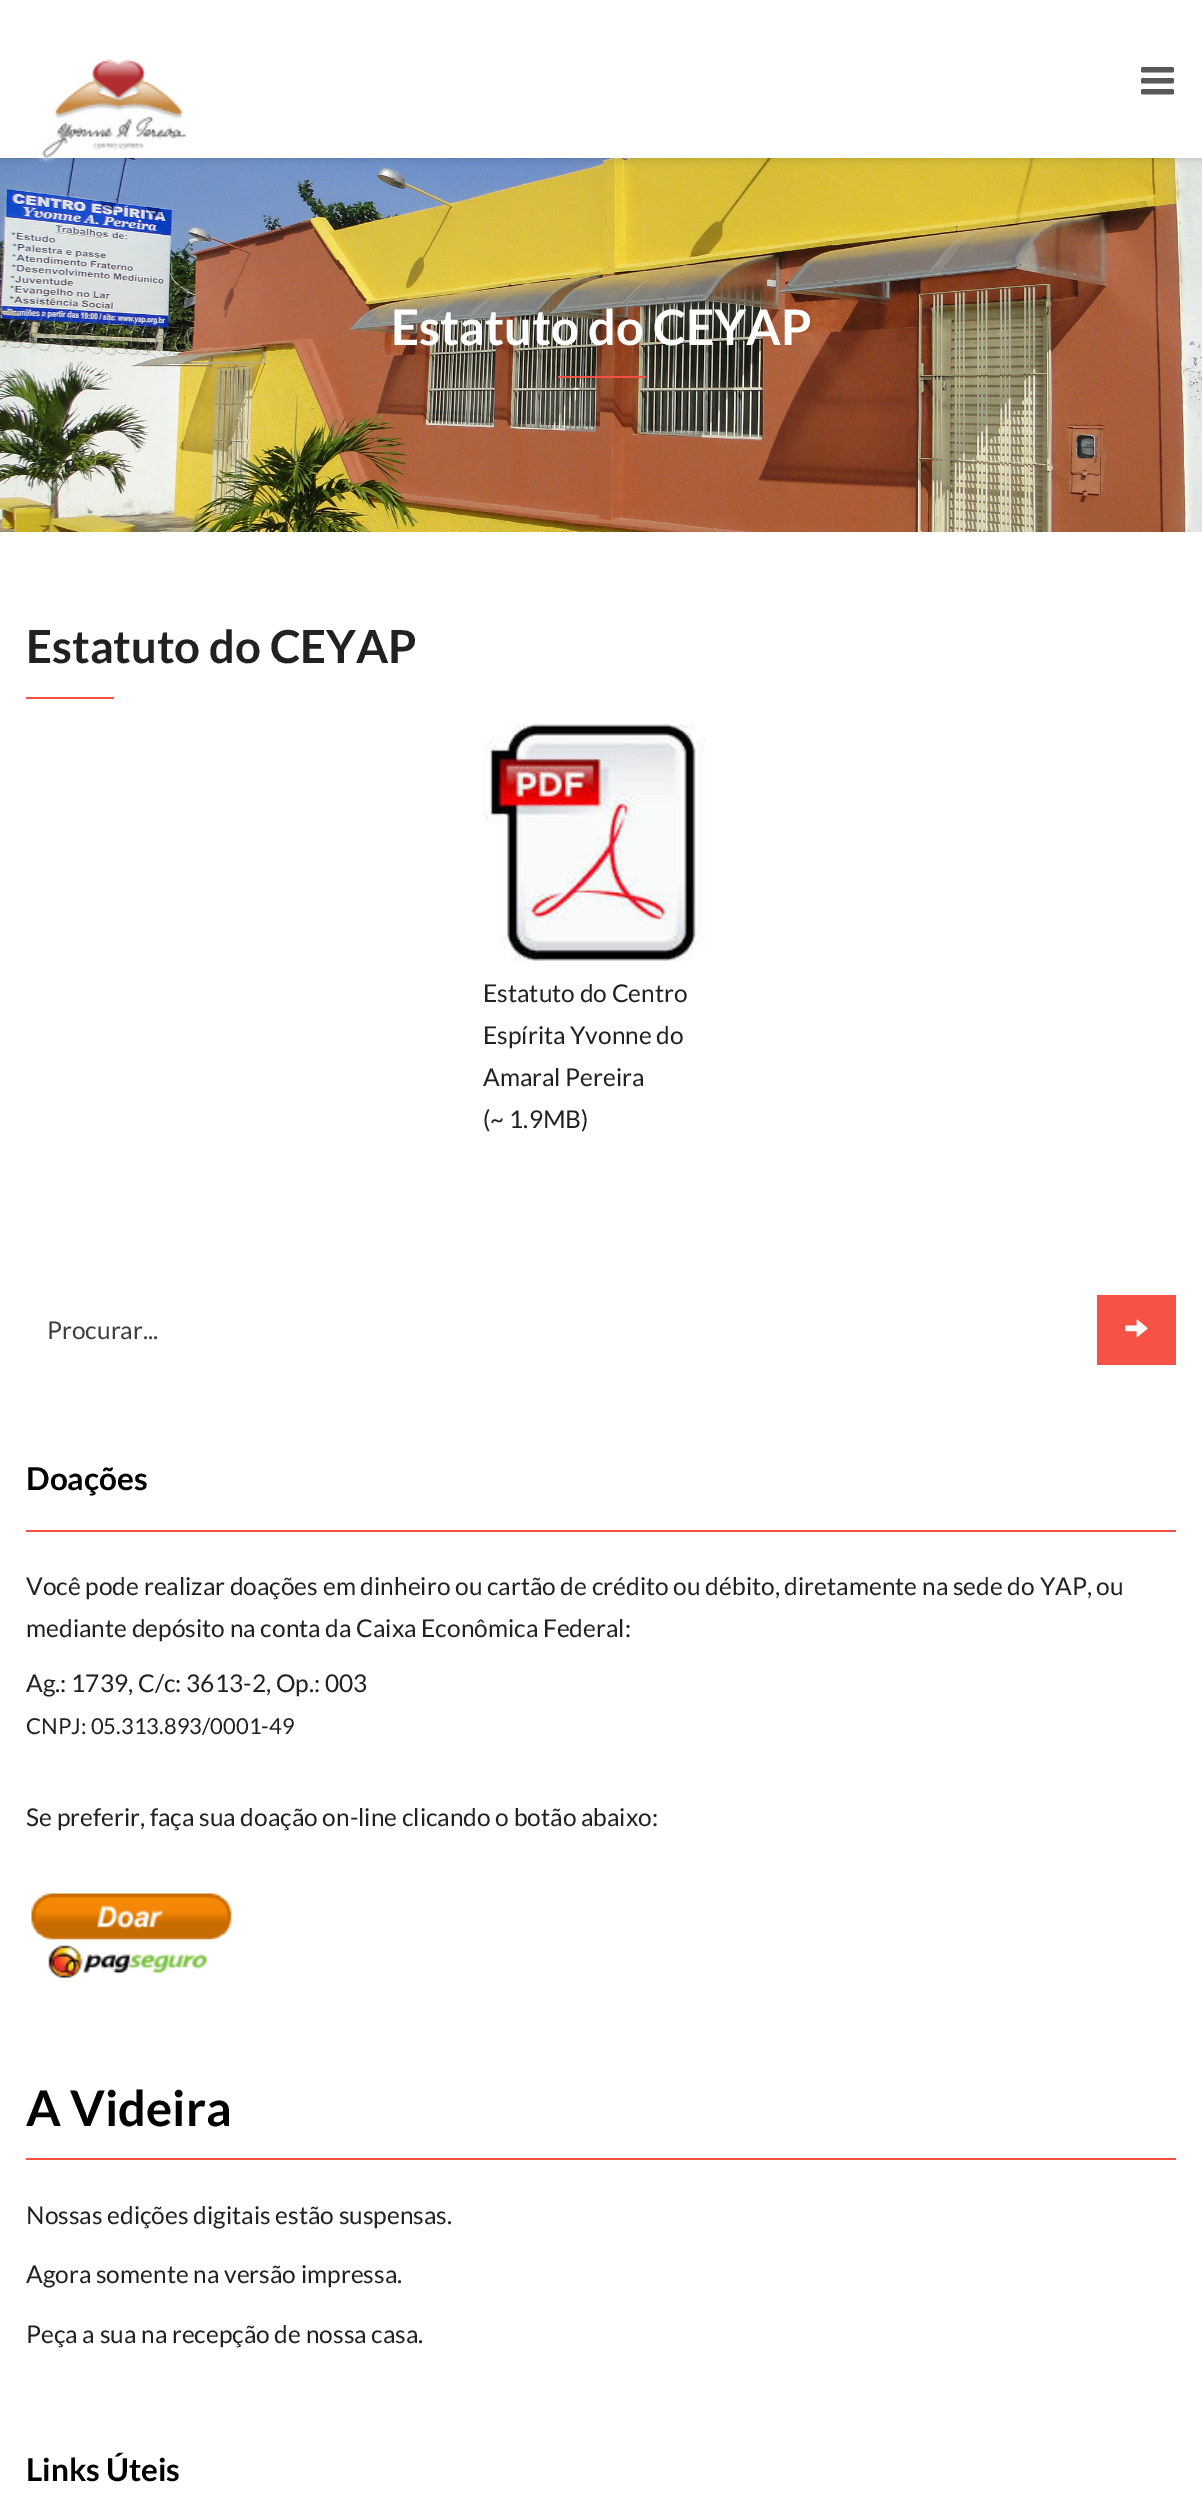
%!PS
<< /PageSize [1202 2511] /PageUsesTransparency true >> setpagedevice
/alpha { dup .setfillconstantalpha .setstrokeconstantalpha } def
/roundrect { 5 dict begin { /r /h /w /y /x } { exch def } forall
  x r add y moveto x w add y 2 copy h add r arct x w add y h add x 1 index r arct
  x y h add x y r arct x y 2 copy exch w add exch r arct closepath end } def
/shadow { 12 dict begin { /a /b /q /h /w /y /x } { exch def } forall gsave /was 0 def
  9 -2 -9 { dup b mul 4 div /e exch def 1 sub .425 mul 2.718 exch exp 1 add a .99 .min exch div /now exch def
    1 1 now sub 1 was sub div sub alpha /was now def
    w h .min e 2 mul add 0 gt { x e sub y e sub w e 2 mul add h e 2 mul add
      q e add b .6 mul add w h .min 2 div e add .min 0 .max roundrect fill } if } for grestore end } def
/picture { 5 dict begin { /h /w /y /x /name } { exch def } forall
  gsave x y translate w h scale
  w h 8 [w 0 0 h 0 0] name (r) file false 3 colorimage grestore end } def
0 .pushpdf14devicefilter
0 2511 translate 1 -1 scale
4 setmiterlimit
1 setgray
0 0 1202 2511 rectfill
(img3.rgb) 0 158 1202 374 picture
0 setgray
0 0 1202 158 0 4.5 0.2 shadow
1 setgray
0 0 1202 158 rectfill
(img1.rgb) 38 59 149 104 picture
(img2.rgb) 1141 67 33 28 picture
/Lato-Bold [49 0 0 -49 0 0] selectfont
391 345 moveto (Estatuto do CEYAP) show
0.961 0.318 0.271 setrgbcolor
558 376 88 2 rectfill
/Lato-Bold [45.5 0 0 -45.5 0 0] selectfont
0.129 setgray
26 663 moveto (Estatuto do CEYAP) show
0.961 0.318 0.271 setrgbcolor
26 697 88 2 rectfill
(img4.rgb) 483 724 223 237 picture
/Lato-Regular [24.5 0 0 -24.5 0 0] selectfont
0.129 setgray
483 1002 moveto (Estatuto do Centro) show
483 1044 moveto (Espírita Yvonne do) show
483 1086 moveto (Amaral Pereira) show
483 1128 moveto (\(~ 1.9MB\)) show
0.243 setgray
47 1339 moveto (Procurar...) show
0.961 0.318 0.271 setrgbcolor
1097 1295 79 70 rectfill
(img5.rgb) 1125 1319 23 19 picture
26 1530 1150 2 rectfill
/Lato-Bold [31.5 0 0 -31.5 0 0] selectfont
0.004 setgray
26 1490 moveto (Doações) show
/Lato-Regular [24.5 0 0 -24.5 0 0] selectfont
0.129 setgray
26 1595 moveto (Você pode realizar doações em dinheiro ou cartão de crédito ou débito, diretamente na sede do YAP, ou) show
26 1637 moveto (mediante depósito na conta da Caixa Econômica Federal:) show
26 1692 moveto (Ag.: 1739, C/c: 3613-2, Op.: 003) show
/Lato-Regular [22 0 0 -22 0 0] selectfont
26 1734 moveto (CNPJ: 05.313.893/0001-49) show
/Lato-Regular [24.5 0 0 -24.5 0 0] selectfont
26 1826 moveto (Se preferir, faça sua doação on-line clicando o botão abaixo:) show
(img6.rgb) 31 1893 201 85 picture
0.961 0.318 0.271 setrgbcolor
26 2158 1150 2 rectfill
/Lato-Bold [49 0 0 -49 0 0] selectfont
0.004 setgray
26 2126 moveto (A Videira) show
/Lato-Regular [24.5 0 0 -24.5 0 0] selectfont
0.129 setgray
26 2224 moveto (Nossas edições digitais estão suspensas.) show
26 2283 moveto (Agora somente na versão impressa.) show
26 2343 moveto (Peça a sua na recepção de nossa casa.) show
/Lato-Bold [31.5 0 0 -31.5 0 0] selectfont
0.004 setgray
26 2481 moveto (Links Úteis) show
.poppdf14devicefilter showpage
